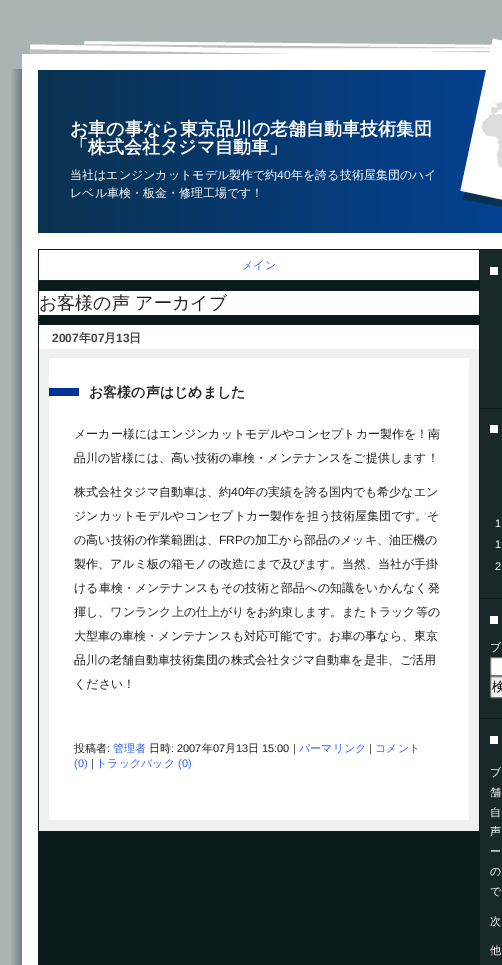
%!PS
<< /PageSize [502 965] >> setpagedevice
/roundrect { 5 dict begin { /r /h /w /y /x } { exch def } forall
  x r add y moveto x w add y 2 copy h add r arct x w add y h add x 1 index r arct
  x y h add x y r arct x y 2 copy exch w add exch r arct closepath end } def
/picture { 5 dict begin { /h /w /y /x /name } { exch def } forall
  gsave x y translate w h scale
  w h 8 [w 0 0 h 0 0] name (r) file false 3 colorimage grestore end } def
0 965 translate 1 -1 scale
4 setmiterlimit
0.667 0.706 0.706 setrgbcolor
0 0 502 965 rectfill
(img1.rgb) 11 37 491 213 picture
/WenQuanYiZenHei-Bold [18 0 0 -18 0 0] selectfont
1 setgray
70 135 moveto (お車の事なら東京品川の老舗自動車技術集団) show
70 153 moveto (「株式会社タジマ自動車」) show
/WenQuanYiZenHei-Medium [12 0 0 -12 0 0] selectfont
70 179 moveto (当社はエンジンカットモデル製作で約) show
/LiberationSans-Regular [12 0 0 -12 0 0] selectfont
277 179 moveto (40) show
/WenQuanYiZenHei-Medium [12 0 0 -12 0 0] selectfont
291 179 moveto (年を誇る技術屋集団のハイ) show
70 197 moveto (レベル車検・板金・修理工場です！) show
(img2.rgb) 11 250 491 715 picture
39 250 440 30 rectfill
0.098 0.161 0.157 setrgbcolor
39 280 440 1 rectfill
/WenQuanYiZenHei-Medium [11 0 0 -11 0 0] selectfont
0.2 0.4 1 setrgbcolor
242 269 moveto (メイン) show
1 setgray
39 291 440 24 rectfill
/WenQuanYiZenHei-Medium [18 0 0 -18 0 0] selectfont
0.133 setgray
39 309 moveto (お客様の声 アーカイブ) show
1 setgray
39 325 440 24 rectfill
/LiberationSans-Bold [12 0 0 -12 0 0] selectfont
0.267 setgray
52 342 moveto (2007) show
/WenQuanYiZenHei-Bold [12 0 0 -12 0 0] selectfont
79 342 moveto (年) show
/LiberationSans-Bold [12 0 0 -12 0 0] selectfont
91 342 moveto (07) show
/WenQuanYiZenHei-Bold [12 0 0 -12 0 0] selectfont
104 342 moveto (月) show
/LiberationSans-Bold [12 0 0 -12 0 0] selectfont
116 342 moveto (13) show
/WenQuanYiZenHei-Bold [12 0 0 -12 0 0] selectfont
129 342 moveto (日) show
(img3.rgb) 39 349 440 482 picture
(img4.rgb) 47 349 422 48 picture
/WenQuanYiZenHei-Bold [14 0 0 -14 0 0] selectfont
0.133 setgray
89 397 moveto (お客様の声はじめました) show
/WenQuanYiZenHei-Medium [12 0 0 -12 0 0] selectfont
74 438 moveto (メーカー様にはエンジンカットモデルやコンセプトカー製作を！南) show
74 462 moveto (品川の皆様には、高い技術の車検・メンテナンスをご提供します！) show
74 496 moveto (株式会社タジマ自動車は、約) show
/LiberationSans-Regular [12 0 0 -12 0 0] selectfont
231 496 moveto (40) show
/WenQuanYiZenHei-Medium [12 0 0 -12 0 0] selectfont
244 496 moveto (年の実績を誇る国内でも希少なエン) show
74 520 moveto (ジンカットモデルやコンセプトカー製作を担う技術屋集団です。そ) show
74 544 moveto (の高い技術の作業範囲は、) show
/LiberationSans-Regular [12 0 0 -12 0 0] selectfont
219 544 moveto (FRP) show
/WenQuanYiZenHei-Medium [12 0 0 -12 0 0] selectfont
243 544 moveto (の加工から部品のメッキ、油圧機の) show
74 568 moveto (製作、アルミ板の箱モノの改造にまで及びます。当然、当社が手掛) show
74 592 moveto (ける車検・メンテナンスもその技術と部品への知識をいかんなく発) show
74 616 moveto (揮し、ワンランク上の仕上がりをお約束します。またトラック等の) show
74 640 moveto (大型車の車検・メンテナンスも対応可能です。お車の事なら、東京) show
74 664 moveto (品川の老舗自動車技術集団の株式会社タジマ自動車を是非、ご活用) show
74 688 moveto (ください！) show
0.941 setgray
49 820 420 11 rectfill
/WenQuanYiZenHei-Medium [11 0 0 -11 0 0] selectfont
0.133 setgray
74 752 moveto (投稿者) show
/LiberationSans-Regular [11 0 0 -11 0 0] selectfont
107 752 moveto (:) show
/WenQuanYiZenHei-Medium [11 0 0 -11 0 0] selectfont
0.2 0.4 1 setrgbcolor
113 752 moveto (管理者) show
0.133 setgray
149 752 moveto (日時) show
/LiberationSans-Regular [11 0 0 -11 0 0] selectfont
171 752 moveto (: 2007) show
/WenQuanYiZenHei-Medium [11 0 0 -11 0 0] selectfont
202 752 moveto (年) show
/LiberationSans-Regular [11 0 0 -11 0 0] selectfont
213 752 moveto (07) show
/WenQuanYiZenHei-Medium [11 0 0 -11 0 0] selectfont
225 752 moveto (月) show
/LiberationSans-Regular [11 0 0 -11 0 0] selectfont
236 752 moveto (13) show
/WenQuanYiZenHei-Medium [11 0 0 -11 0 0] selectfont
248 752 moveto (日) show
/LiberationSans-Regular [11 0 0 -11 0 0] selectfont
262 752 moveto (15:00 |) show
/WenQuanYiZenHei-Medium [11 0 0 -11 0 0] selectfont
0.2 0.4 1 setrgbcolor
299 752 moveto (パーマリンク) show
/LiberationSans-Regular [11 0 0 -11 0 0] selectfont
0.133 setgray
369 752 moveto (|) show
/WenQuanYiZenHei-Medium [11 0 0 -11 0 0] selectfont
0.2 0.4 1 setrgbcolor
375 752 moveto (コメント) show
/LiberationSans-Regular [11 0 0 -11 0 0] selectfont
74 767 moveto (\(0\)) show
0.133 setgray
91 767 moveto (|) show
/WenQuanYiZenHei-Medium [11 0 0 -11 0 0] selectfont
0.2 0.4 1 setrgbcolor
96 767 moveto (トラックバック) show
/LiberationSans-Regular [11 0 0 -11 0 0] selectfont
178 767 moveto (\(0\)) show
0.039 0.102 0.098 setrgbcolor
480 408 22 1 rectfill
1 setgray
490 267 8 8 rectfill
0.039 0.102 0.098 setrgbcolor
480 598 22 1 rectfill
1 setgray
490 425 8 8 rectfill
495 527 moveto (1) show
495 548 moveto (1) show
495 570 moveto (2) show
0.039 0.102 0.098 setrgbcolor
480 718 22 1 rectfill
1 setgray
490 616 8 8 rectfill
/WenQuanYiZenHei-Medium [11 0 0 -11 0 0] selectfont
490 651 moveto (ブ) show
490.5 657.5 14 18 1.5 roundrect gsave fill grestore
0.463 setgray
stroke
0.937 setgray
490.5 676.5 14 21 1.5 roundrect gsave fill grestore
0.463 setgray
stroke
/WenQuanYiZenHei-Medium [13 0 0 -13 0 0] selectfont
0 setgray
492 691 moveto (検) show
1 setgray
490 736 8 8 rectfill
/WenQuanYiZenHei-Medium [11 0 0 -11 0 0] selectfont
490 776 moveto (ブ) show
490 796 moveto (舗) show
490 816 moveto (自) show
490 835 moveto (声) show
490 855 moveto (ー) show
490 875 moveto (の) show
490 895 moveto (で) show
490 925 moveto (次) show
490 954 moveto (他) show
showpage
